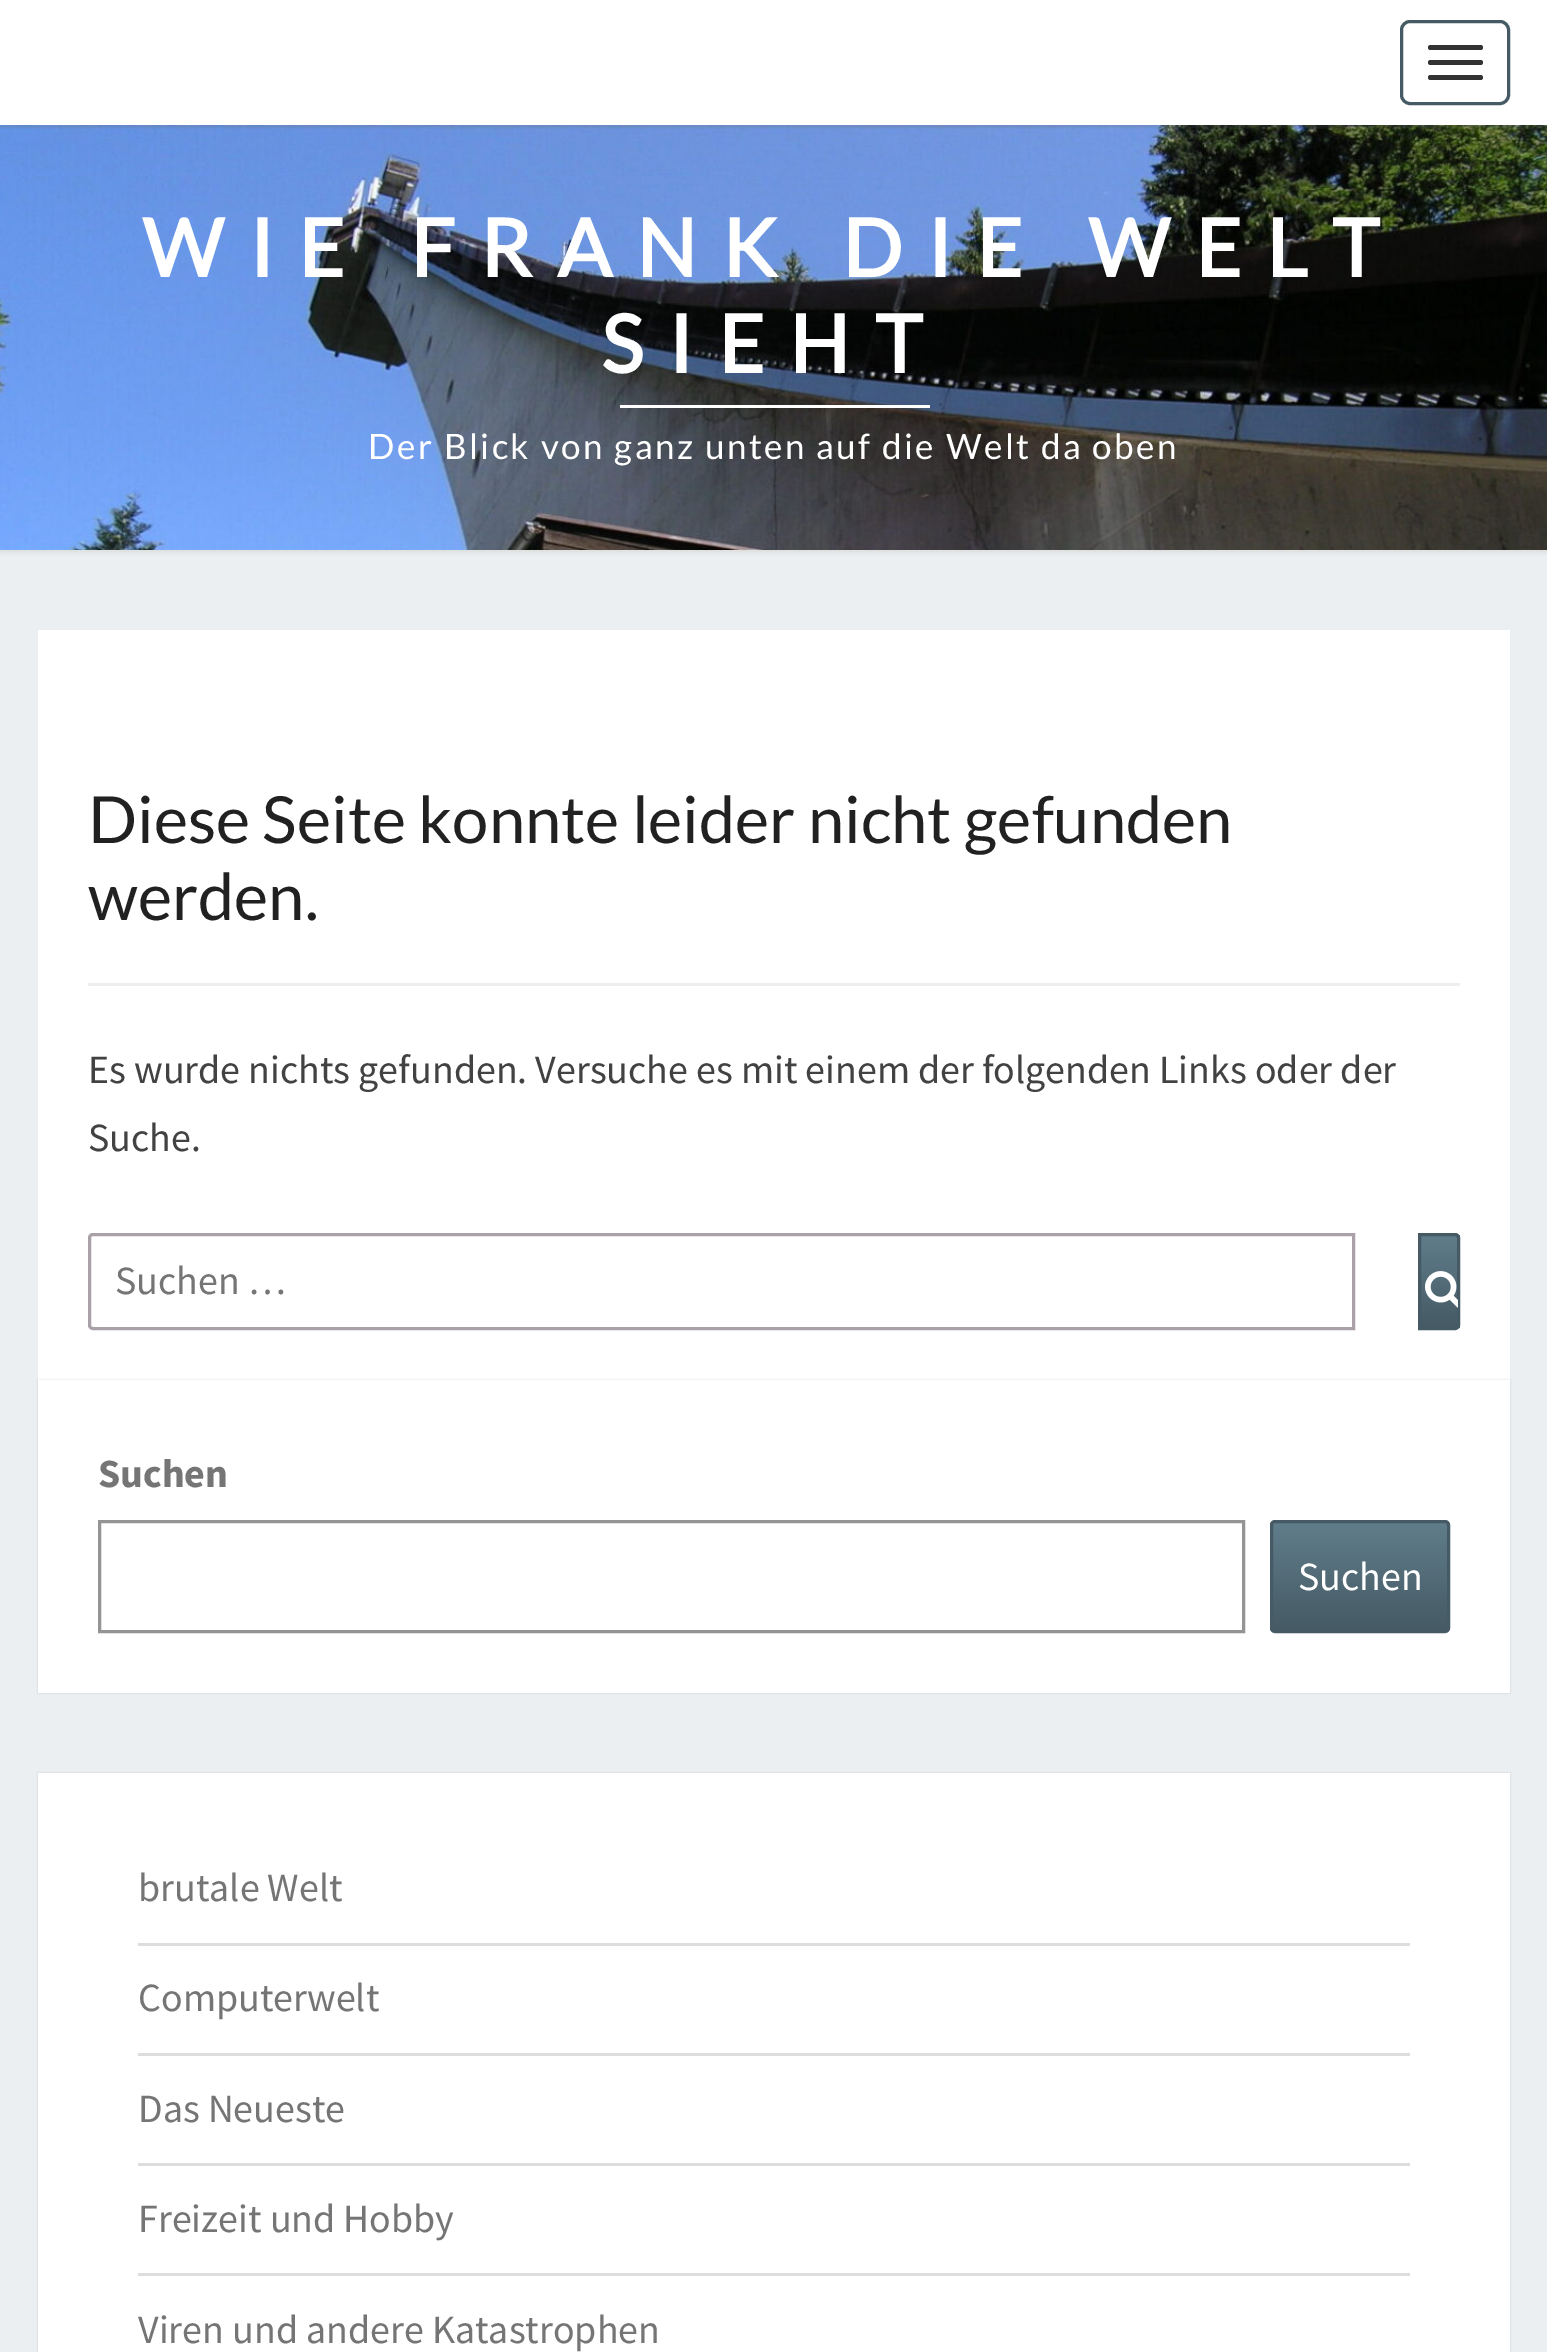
%!PS
<< /PageSize [1547 2352] /PageUsesTransparency true >> setpagedevice
/alpha { dup .setfillconstantalpha .setstrokeconstantalpha } def
/roundrect { 5 dict begin { /r /h /w /y /x } { exch def } forall
  x r add y moveto x w add y 2 copy h add r arct x w add y h add x 1 index r arct
  x y h add x y r arct x y 2 copy exch w add exch r arct closepath end } def
/shadow { 12 dict begin { /a /b /q /h /w /y /x } { exch def } forall gsave /was 0 def
  9 -2 -9 { dup b mul 4 div /e exch def 1 sub .425 mul 2.718 exch exp 1 add a .99 .min exch div /now exch def
    1 1 now sub 1 was sub div sub alpha /was now def
    w h .min e 2 mul add 0 gt { x e sub y e sub w e 2 mul add h e 2 mul add
      q e add b .6 mul add w h .min 2 div e add .min 0 .max roundrect fill } if } for grestore end } def
/picture { 5 dict begin { /h /w /y /x /name } { exch def } forall
  gsave x y translate w h scale
  w h 8 [w 0 0 h 0 0] name (r) file false 3 colorimage grestore end } def
0 .pushpdf14devicefilter
0 2352 translate 1 -1 scale
4 setmiterlimit
0.925 0.937 0.945 setrgbcolor
0 0 1547 2352 rectfill
0.714 setgray
-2 123 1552 430 0 2.5 0.3 shadow
(img1.rgb) 0 125 1547 425 picture
0.392 setgray
0 3 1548 125 0 1 0.2 shadow
1 setgray
0 0 1547 125 rectfill
0.271 0.353 0.392 setrgbcolor
3 setlinewidth
1401.5 21.5 107 82 8.5 roundrect stroke
0.2 setgray
1428 45 55 5 2.5 roundrect fill
1428 60 55 5 2.5 roundrect fill
1428 75 55 5 2.5 roundrect fill
/Lato-Bold [80 0 0 -80 0 0] selectfont
1 setgray
142 277 moveto 25 0 (WIE FRANK DIE WELT) ashow
601 373 moveto 25 0 (SIEHT) ashow
620 405 310 3 rectfill
/Lato-Regular [35 0 0 -35 0 0] selectfont
368 459 moveto 2.5 0 (Der Blick von ganz unten auf die Welt da oben) ashow
38 630 1472 750 rectfill
0.933 setgray
88 983 1372 3 rectfill
/Lato-Regular [65 0 0 -65 0 0] selectfont
0.129 setgray
88 843 moveto (Diese Seite konnte leider nicht gefunden) show
88 920 moveto (werden.) show
/SourceSansPro-Regular [40 0 0 -40 0 0] selectfont
0.259 setgray
88 1083 moveto (Es wurde nichts gefunden. Versuche es mit einem der folgenden Links oder der) show
88 1151 moveto (Suche.) show
0.667 0.631 0.659 setrgbcolor
newpath 93 1234.5 moveto 1353.5 1234.5 lineto 1353.5 1328.5 lineto 93 1328.5 lineto 91 1328.5 89.5 1327 89.5 1325 curveto 89.5 1238 lineto 89.5 1236 91 1234.5 93 1234.5 curveto closepath stroke
0.459 setgray
115 1294 moveto (Suchen …) show
gsave
newpath 1418 1233 moveto 1455 1233 lineto 1458 1233 1460 1235 1460 1238 curveto 1460 1325 lineto 1460 1328 1458 1330 1455 1330 curveto 1418 1330 lineto closepath clip newpath
gsave newpath 1421 1235 moveto 1460 1235 lineto 1460 1328 lineto 1421 1328 lineto closepath clip newpath
<< /ShadingType 2 /ColorSpace /DeviceRGB /Coords [1439 1235 1439 1328] /Extend [true true] /Function << /FunctionType 2 /Domain [0 1] /C0 [0.376 0.49 0.545] /C1 [0.271 0.353 0.392] /N 1 >> >> shfill grestore
grestore
0.271 0.353 0.392 setrgbcolor
newpath 1419.5 1234.5 moveto 1455 1234.5 lineto 1457 1234.5 1458.5 1236 1458.5 1238 curveto 1458.5 1325 lineto 1458.5 1327 1457 1328.5 1455 1328.5 curveto 1419.5 1328.5 lineto closepath stroke
(img2.rgb) 1425 1271 33 37 picture
0 setgray
38 1380 1472 313 0 1 0.15 shadow
1 setgray
38 1380 1472 313 rectfill
/SourceSansPro-Bold [40 0 0 -40 0 0] selectfont
0.459 setgray
98 1487 moveto (Suchen) show
0.58 setgray
99.5 1521.5 1144 110 rectstroke
gsave
1270 1520 180 113 5 roundrect clip newpath
gsave newpath 1270 1523 moveto 1450 1523 lineto 1450 1630 lineto 1270 1630 lineto closepath clip newpath
<< /ShadingType 2 /ColorSpace /DeviceRGB /Coords [1360 1523 1360 1630] /Extend [true true] /Function << /FunctionType 2 /Domain [0 1] /C0 [0.376 0.49 0.545] /C1 [0.271 0.353 0.392] /N 1 >> >> shfill grestore
grestore
0.271 0.353 0.392 setrgbcolor
1271.5 1521.5 177 110 3.5 roundrect stroke
/SourceSansPro-Regular [40 0 0 -40 0 0] selectfont
1 setgray
1298 1590 moveto (Suchen) show
0 setgray
38 1773 1472 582 0 1 0.15 shadow
1 setgray
38 1773 1472 579 rectfill
0.867 setgray
138 1943 1272 3 rectfill
0.459 setgray
138 1901 moveto (brutale Welt) show
0.867 setgray
138 2053 1272 3 rectfill
0.459 setgray
138 2011 moveto (Computerwelt) show
0.867 setgray
138 2163 1272 3 rectfill
0.459 setgray
138 2122 moveto (Das Neueste) show
0.867 setgray
138 2273 1272 3 rectfill
0.459 setgray
138 2232 moveto (Freizeit und Hobby) show
138 2343 moveto (Viren und andere Katastrophen) show
.poppdf14devicefilter showpage
